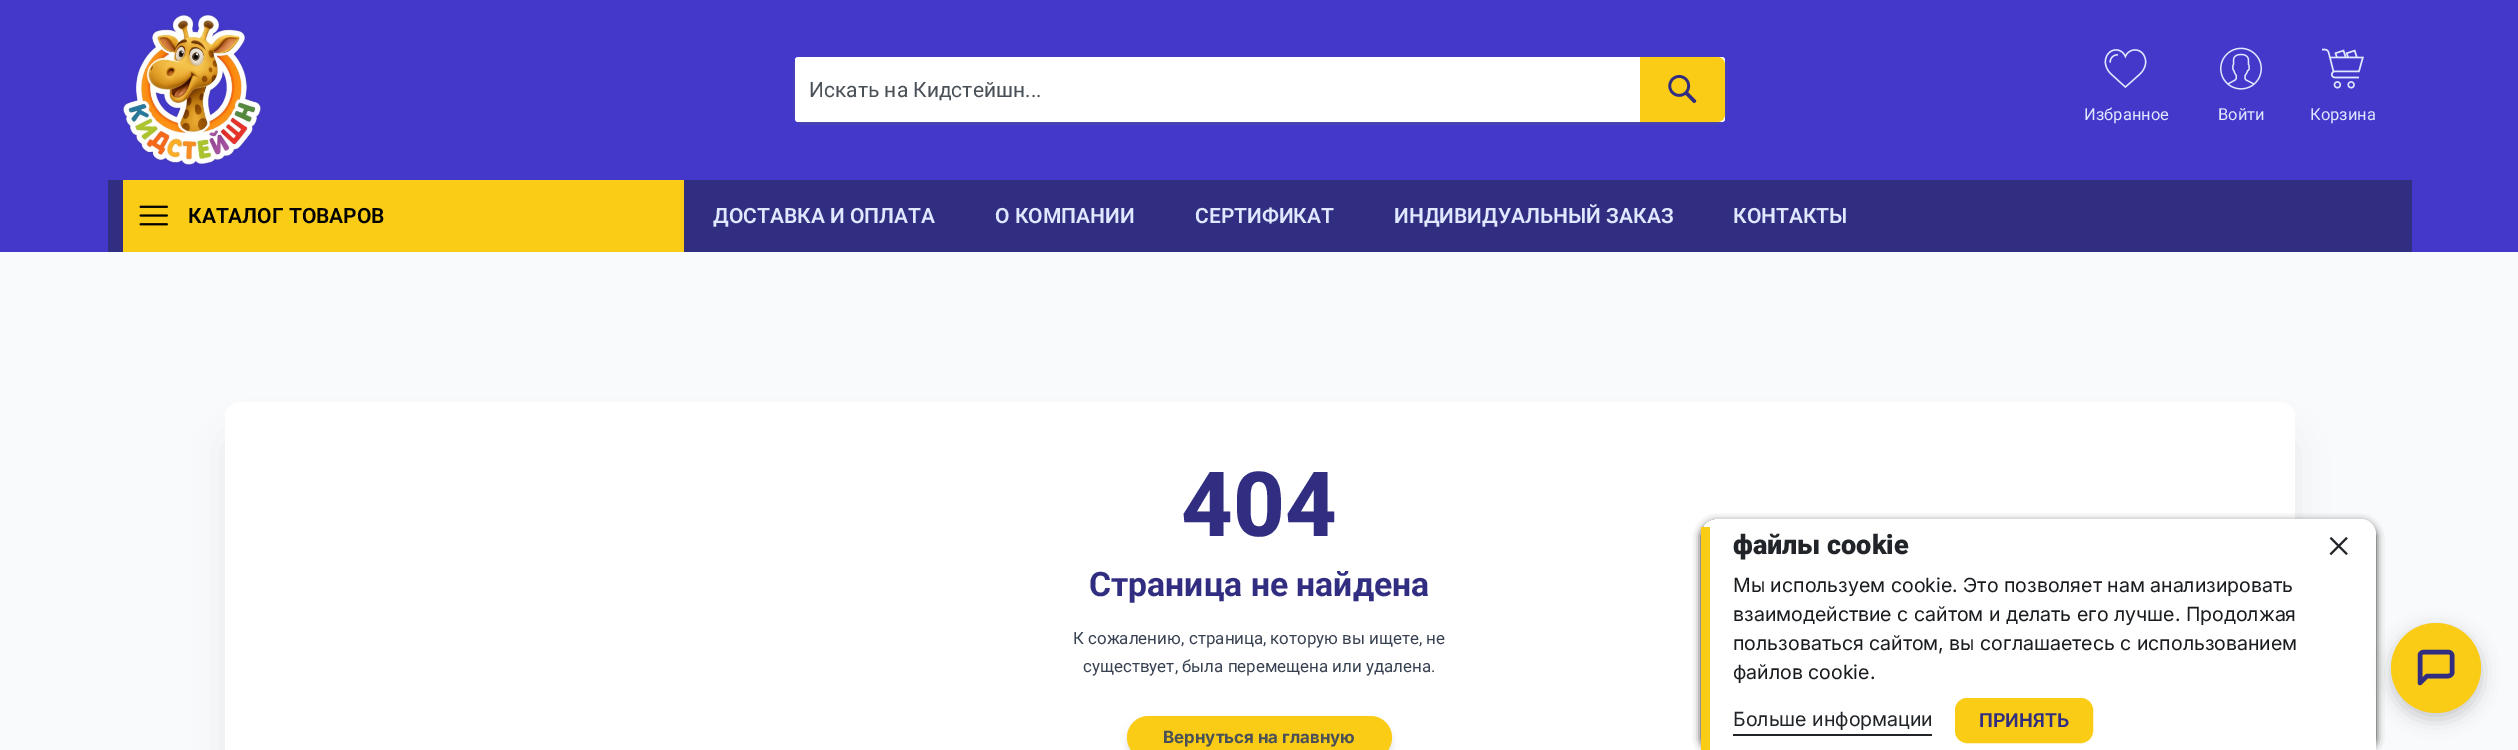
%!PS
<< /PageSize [2518 750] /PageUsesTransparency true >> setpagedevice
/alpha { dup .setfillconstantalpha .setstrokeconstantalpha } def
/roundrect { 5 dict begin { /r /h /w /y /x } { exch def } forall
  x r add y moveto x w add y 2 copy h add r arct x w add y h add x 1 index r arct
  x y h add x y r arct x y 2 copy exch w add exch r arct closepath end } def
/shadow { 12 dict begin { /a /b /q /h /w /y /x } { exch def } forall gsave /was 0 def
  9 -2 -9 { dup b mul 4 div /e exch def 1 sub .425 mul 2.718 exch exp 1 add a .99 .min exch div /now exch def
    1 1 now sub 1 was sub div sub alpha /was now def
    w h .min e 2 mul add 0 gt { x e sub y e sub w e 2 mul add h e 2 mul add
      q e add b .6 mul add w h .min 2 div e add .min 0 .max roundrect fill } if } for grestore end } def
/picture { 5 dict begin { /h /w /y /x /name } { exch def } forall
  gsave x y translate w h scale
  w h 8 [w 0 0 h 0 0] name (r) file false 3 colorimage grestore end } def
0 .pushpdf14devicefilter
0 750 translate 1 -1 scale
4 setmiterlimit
0.976 0.98 0.984 setrgbcolor
0 0 2518 750 rectfill
0.263 0.22 0.792 setrgbcolor
0 0 2518 252 rectfill
(img1.rgb) 123 15 138 150 picture
0.384 setgray
795 59 930 64 8 1.5 0.5 shadow
1 setgray
795 57 930 65 3 roundrect fill
/Roboto-Regular [21 0 0 -21 0 0] selectfont
0.286 0.314 0.341 setrgbcolor
809 97 moveto (Искать на Кидстейшн) show
/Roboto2-Regular [21 0 0 -21 0 0] selectfont
1025 97 moveto (...) show
0.98 0.8 0.082 setrgbcolor
newpath 1640 57 moveto 1717 57 lineto 1721.5 57 1725 60.5 1725 65 curveto 1725 114 lineto 1725 118.5 1721.5 122 1717 122 curveto 1640 122 lineto closepath fill
(img2.rgb) 1668 74 29 29 picture
(img3.rgb) 2104 49 43 40 picture
/Roboto-Regular [16.5 0 0 -16.5 0 0] selectfont
0.878 0.906 1 setrgbcolor
2084 120 moveto (Избранное) show
(img4.rgb) 2220 47 42 43 picture
2218 120 moveto (Войти) show
(img5.rgb) 2322 48 42 41 picture
2310 120 moveto (Корзина) show
0.192 0.18 0.506 setrgbcolor
108 180 2304 72 rectfill
0.98 0.8 0.082 setrgbcolor
123 180 561 72 rectfill
(img6.rgb) 139 205 29 21 picture
/Roboto-SemiBold [21 0 0 -21 0 0] selectfont
0 setgray
188 223 moveto (КАТАЛОГ ТОВАРОВ) show
0.878 0.906 1 setrgbcolor
713 223 moveto (ДОСТАВКА И ОПЛАТА) show
995 223 moveto (О КОМПАНИИ) show
1195 223 moveto (СЕРТИФИКАТ) show
1394 223 moveto (ИНДИВИДУАЛЬНЫЙ ЗАКАЗ) show
1733 223 moveto (КОНТАКТЫ) show
0 setgray
233 440 2055 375 8 19 0.1 shadow
1 setgray
225 402 2070 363 15 roundrect fill
/Roboto-ExtraBold [90 0 0 -90 0 0] selectfont
0.192 0.18 0.506 setrgbcolor
1181 536 moveto (404) show
/Roboto-Bold [33.75 0 0 -33.75 0 0] selectfont
1089 596 moveto (Страница не найдена) show
/Roboto-Regular [16.9 0 0 -16.9 0 0] selectfont
0.216 0.255 0.318 setrgbcolor
1073 644 moveto (К сожалению) show
/Roboto2-Regular [16.9 0 0 -16.9 0 0] selectfont
1181 644 moveto (,) show
/Roboto-Regular [16.9 0 0 -16.9 0 0] selectfont
1189 644 moveto (страница) show
/Roboto2-Regular [16.9 0 0 -16.9 0 0] selectfont
1263 644 moveto (,) show
/Roboto-Regular [16.9 0 0 -16.9 0 0] selectfont
1270 644 moveto (которую вы ищете) show
/Roboto2-Regular [16.9 0 0 -16.9 0 0] selectfont
1419 644 moveto (,) show
/Roboto-Regular [16.9 0 0 -16.9 0 0] selectfont
1426 644 moveto (не) show
1083 672 moveto (существует) show
/Roboto2-Regular [16.9 0 0 -16.9 0 0] selectfont
1175 672 moveto (,) show
/Roboto-Regular [16.9 0 0 -16.9 0 0] selectfont
1182 672 moveto (была перемещена или удалена) show
/Roboto2-Regular [16.9 0 0 -16.9 0 0] selectfont
1431 672 moveto (.) show
0 setgray
1130 722 259 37 18.5 3 0.1 shadow
1128 723 263 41 20.5 4.5 0.1 shadow
0.98 0.8 0.082 setrgbcolor
1127 716 265 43 21.5 roundrect fill
/Inter-Bold [16.9 0 0 -16.9 0 0] selectfont
0.286 0.314 0.341 setrgbcolor
1163 743 moveto (Вернуться на главную) show
gsave
newpath 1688 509 moveto 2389 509 lineto 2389 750 lineto 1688 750 lineto closepath 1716 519 moveto 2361 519 lineto 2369.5 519 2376 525.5 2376 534 curveto 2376 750 lineto 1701 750 lineto 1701 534 lineto 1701 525.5 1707.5 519 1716 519 curveto closepath eoclip newpath
0.129 setgray
1701 522 675 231 15 4 1 shadow
grestore
1 setgray
newpath 1716 519 moveto 2361 519 lineto 2369 519 2376 526 2376 534 curveto 2376 750 lineto 1710 750 lineto 1710 534 lineto 1710 526 1713 519 1716 519 curveto closepath fill
0 setgray
2391 629 90 90 45 9 0.2 shadow
0.98 0.8 0.082 setrgbcolor
newpath 2436 668 45 0 360 arc closepath fill
0.192 0.18 0.506 setrgbcolor
4.4 setlinewidth
1 setlinecap
1 setlinejoin
newpath 2452 673 moveto 2452 674.5 2450 676 2448 676 curveto 2427 676 lineto 2420 683 lineto 2420 655 lineto 2420 653.5 2422 652 2424 652 curveto 2448 652 lineto 2450 652 2452 653.5 2452 655 curveto closepath stroke
0.98 0.8 0.082 setrgbcolor
1701 527 9 223 rectfill
/Roboto-Black [27 0 0 -27 0 0] selectfont
0.129 0.145 0.161 setrgbcolor
1733 554 moveto (файлы cookie) show
/Inter-Regular [19.5 0 0 -19.5 0 0] selectfont
0.102 0.114 0.125 setrgbcolor
1733 592 moveto (Мы используем cookie. Это позволяет нам анализировать) show
1733 621 moveto (взаимодействие с сайтом и делать его лучше. Продолжая) show
1733 650 moveto (пользоваться сайтом, вы соглашаетесь с использованием) show
1733 679 moveto (файлов cookie.) show
0.129 0.145 0.161 setrgbcolor
1733 734 199 2 rectfill
1733 726 moveto (Больше информации) show
0.98 0.8 0.082 setrgbcolor
1956 699 136 43 11 roundrect gsave fill grestore
2 setlinewidth
0 setlinecap
0 setlinejoin
stroke
/Roboto-SemiBold [19.5 0 0 -19.5 0 0] selectfont
0.192 0.18 0.506 setrgbcolor
1979 727 moveto (ПРИНЯТЬ) show
/LiberationSerif-Regular [45 0 0 -45 0 0] selectfont
0.129 0.145 0.161 setrgbcolor
2326 561 moveto (×) show
.poppdf14devicefilter showpage
